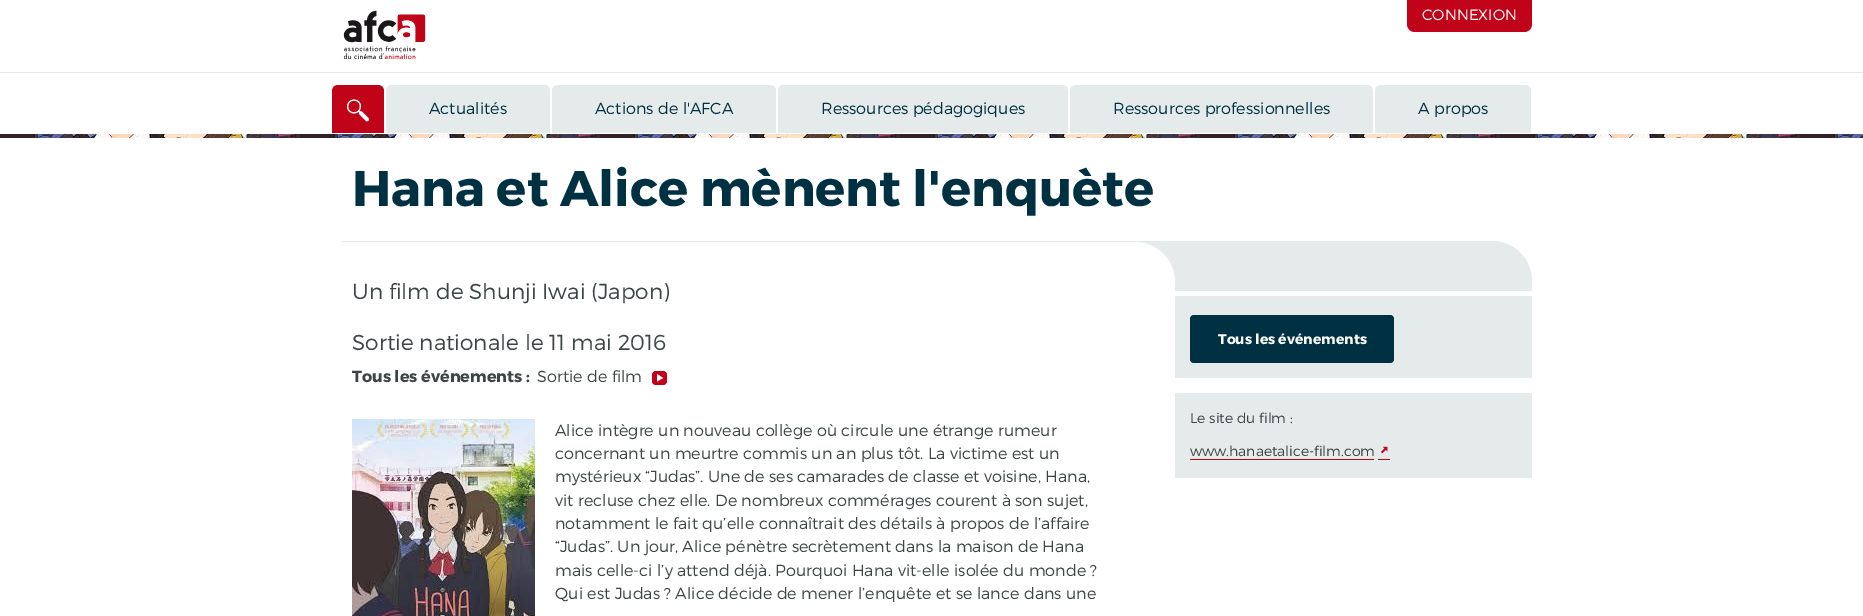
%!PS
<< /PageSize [1863 616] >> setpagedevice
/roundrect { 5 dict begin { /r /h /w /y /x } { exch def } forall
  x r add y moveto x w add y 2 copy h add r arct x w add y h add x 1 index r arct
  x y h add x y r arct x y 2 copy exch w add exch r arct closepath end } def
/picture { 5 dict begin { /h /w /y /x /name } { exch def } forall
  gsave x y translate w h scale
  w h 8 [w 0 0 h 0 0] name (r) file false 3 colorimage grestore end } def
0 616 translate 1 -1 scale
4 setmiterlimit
1 setgray
0 0 1863 616 rectfill
0.898 0.918 0.918 setrgbcolor
0 72 1863 1 rectfill
(img1.rgb) 343 10 83 50 picture
0.753 0.012 0.094 setrgbcolor
newpath 1407 0 moveto 1532 0 lineto 1532 24 lineto 1532 28.5 1528.5 32 1524 32 curveto 1415 32 lineto 1410.5 32 1407 28.5 1407 24 curveto closepath fill
/Montserrat-Light [15 0 0 -15 0 0] selectfont
1 setgray
1422 20 moveto (CONNEXION) show
0.753 0.012 0.094 setrgbcolor
newpath 338 85 moveto 378 85 lineto 381.5 85 384 87.5 384 91 curveto 384 133 lineto 332 133 lineto 332 91 lineto 332 87.5 334.5 85 338 85 curveto closepath fill
(img2.rgb) 346 99 24 23 picture
0.898 0.918 0.918 setrgbcolor
newpath 392 85 moveto 544 85 lineto 547.5 85 550 87.5 550 91 curveto 550 133 lineto 386 133 lineto 386 91 lineto 386 87.5 388.5 85 392 85 curveto closepath fill
/Montserrat-Light [16 0 0 -16 0 0] selectfont
0 0.192 0.259 setrgbcolor
429 114 moveto (Actualités) show
0.898 0.918 0.918 setrgbcolor
newpath 558 85 moveto 770 85 lineto 773.5 85 776 87.5 776 91 curveto 776 133 lineto 552 133 lineto 552 91 lineto 552 87.5 554.5 85 558 85 curveto closepath fill
0 0.192 0.259 setrgbcolor
595 114 moveto (Actions de l'AFCA) show
0.898 0.918 0.918 setrgbcolor
newpath 784 85 moveto 1062 85 lineto 1065.5 85 1068 87.5 1068 91 curveto 1068 133 lineto 778 133 lineto 778 91 lineto 778 87.5 780.5 85 784 85 curveto closepath fill
0 0.192 0.259 setrgbcolor
821 114 moveto (Ressources pédagogiques) show
0.898 0.918 0.918 setrgbcolor
newpath 1076 85 moveto 1367 85 lineto 1370.5 85 1373 87.5 1373 91 curveto 1373 133 lineto 1070 133 lineto 1070 91 lineto 1070 87.5 1072.5 85 1076 85 curveto closepath fill
0 0.192 0.259 setrgbcolor
1113 114 moveto (Ressources professionnelles) show
0.898 0.918 0.918 setrgbcolor
newpath 1381 85 moveto 1525 85 lineto 1528.5 85 1531 87.5 1531 91 curveto 1531 133 lineto 1375 133 lineto 1375 91 lineto 1375 87.5 1377.5 85 1381 85 curveto closepath fill
0 0.192 0.259 setrgbcolor
1418 114 moveto (A propos) show
(img3.rgb) 0 134 1863 4 picture
/Montserrat-Bold [50 0 0 -50 0 0] selectfont
352 206 moveto (Hana et Alice mènent l'enquète) show
0.898 0.918 0.918 setrgbcolor
342 241 833 1 rectfill
1135 242 40 40 rectfill
1 setgray
newpath 1135 242 moveto 1157 242 1175 260 1175 282 curveto 1135 282 lineto closepath fill
/Montserrat-Light [21.6 0 0 -21.6 0 0] selectfont
0.243 0.271 0.275 setrgbcolor
352 299 moveto (Un film de Shunji Iwai \(Japon\)) show
352 350 moveto (Sortie nationale le 11 mai 2016) show
/Montserrat-Bold [16 0 0 -16 0 0] selectfont
352 382 moveto (Tous les événements :) show
/Montserrat-Light [16 0 0 -16 0 0] selectfont
537 382 moveto (Sortie de film) show
0.753 0.012 0.094 setrgbcolor
652 371 15 14 4 roundrect fill
1 setgray
newpath 657 381.5 moveto 657 374 lineto 663 378 lineto closepath fill
(img4.rgb) 352 419 183 197 picture
0.243 0.271 0.275 setrgbcolor
555 436 moveto (Alice intègre un nouveau collège où circule une étrange rumeur) show
555 459 moveto (concernant un meurtre commis un an plus tôt. La victime est un) show
555 482 moveto (mystérieux “Judas”. Une de ses camarades de classe et voisine, Hana,) show
555 506 moveto (vit recluse chez elle. De nombreux commérages courent à son sujet,) show
555 529 moveto (notamment le fait qu’elle connaîtrait des détails à propos de l’affaire) show
555 552 moveto (“Judas”. Un jour, Alice pénètre secrètement dans la maison de Hana) show
555 576 moveto (mais celle-ci l’y attend déjà. Pourquoi Hana vit-elle isolée du monde ?) show
555 599 moveto (Qui est Judas ? Alice décide de mener l’enquête et se lance dans une) show
0.898 0.918 0.918 setrgbcolor
newpath 1175 241 moveto 1492 241 lineto 1514 241 1532 259 1532 281 curveto 1532 291 lineto 1175 291 lineto closepath fill
1175 296 357 82 rectfill
0 0.192 0.259 setrgbcolor
1190 315 204 48 4 roundrect fill
/Montserrat-Bold [14 0 0 -14 0 0] selectfont
1 setgray
1218 344 moveto (Tous les événements) show
0.898 0.918 0.918 setrgbcolor
1175 393 357 85 rectfill
/Montserrat-Light [14 0 0 -14 0 0] selectfont
0.243 0.271 0.275 setrgbcolor
1190 423 moveto (Le site du film :) show
0.753 0.012 0.094 setrgbcolor
1190 459 184 1 rectfill
1378 459 12 1 rectfill
0.243 0.271 0.275 setrgbcolor
1190 456 moveto (www.hanaetalice-film.com) show
(img5.rgb) 1381 446 7 8 picture
showpage
